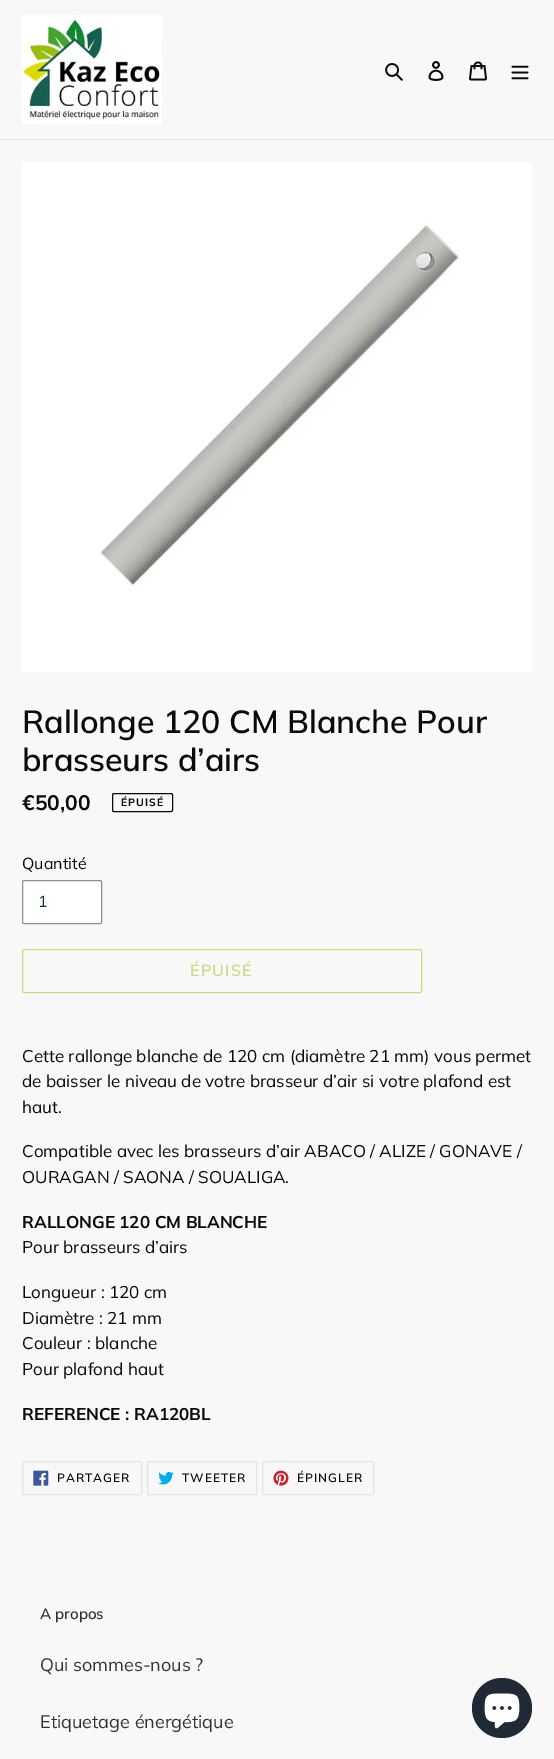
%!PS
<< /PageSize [554 1759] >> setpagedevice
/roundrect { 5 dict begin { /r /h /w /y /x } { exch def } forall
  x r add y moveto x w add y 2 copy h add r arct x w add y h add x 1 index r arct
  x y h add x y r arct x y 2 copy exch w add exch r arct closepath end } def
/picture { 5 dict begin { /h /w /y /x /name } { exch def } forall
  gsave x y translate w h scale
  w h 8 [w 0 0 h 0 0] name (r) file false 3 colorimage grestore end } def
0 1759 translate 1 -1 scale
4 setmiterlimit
0.973 setgray
0 0 554 1759 rectfill
0.894 setgray
0 139 554 1 rectfill
(img1.rgb) 22 15 140 109 picture
(img2.rgb) 385 63 18 18 picture
(img3.rgb) 428 61 16 20 picture
(img4.rgb) 469 61 18 20 picture
(img5.rgb) 511 65 18 15 picture
(img6.rgb) 22 162 510 510 picture
/Muli-SemiBold [32 0 0 -32 0 0] selectfont
0.039 setgray
22 733 moveto (Rallonge 120 CM Blanche Pour) show
22 771 moveto (brasseurs d’airs) show
/Muli-Bold [21 0 0 -21 0 0] selectfont
22 810 moveto (€50,00) show
112.5 793.5 60 18 1.5 roundrect stroke
/Muli-Bold [10.5 0 0 -10.5 0 0] selectfont
121 806 moveto 1 0 (ÉPUISÉ) ashow
/Muli-Regular [16 0 0 -16 0 0] selectfont
22 869 moveto (Quantité) show
1 setgray
22.5 880.5 79 43 1.5 roundrect gsave fill grestore
0.565 setgray
stroke
0.086 0.161 0.314 setrgbcolor
38 907 moveto (1) show
0.784 0.863 0.514 setrgbcolor
22.5 949.5 399 43 1.5 roundrect stroke
/Muli-SemiBold [16 0 0 -16 0 0] selectfont
190 976 moveto 1.25 0 (ÉPUISÉ) ashow
/Muli-Regular [17 0 0 -17 0 0] selectfont
0.039 setgray
22 1062 moveto (Cette rallonge blanche de 120 cm \(diamètre 21 mm\) vous permet) show
22 1087 moveto (de baisser le niveau de votre brasseur d’air si votre plafond est) show
22 1113 moveto (haut.) show
22 1157 moveto (Compatible avec les brasseurs d’air ABACO / ALIZE / GONAVE /) show
22 1183 moveto (OURAGAN / SAONA / SOUALIGA.) show
/Muli-Bold [17 0 0 -17 0 0] selectfont
22 1228 moveto (RALLONGE 120 CM BLANCHE) show
/Muli-Regular [17 0 0 -17 0 0] selectfont
22 1253 moveto (Pour brasseurs d’airs) show
22 1298 moveto (Longueur : 120 cm) show
22 1324 moveto (Diamètre : 21 mm) show
22 1349 moveto (Couleur : blanche) show
22 1375 moveto (Pour plafond haut) show
/Muli-Bold [17 0 0 -17 0 0] selectfont
22 1420 moveto (REFERENCE : RA120BL) show
0.894 setgray
22.5 1461.5 119 33 1.5 roundrect stroke
(img7.rgb) 33 1470 16 16 picture
/Muli-SemiBold [12 0 0 -12 0 0] selectfont
0.039 setgray
57 1482 moveto 1 0 (PARTAGER) ashow
0.894 setgray
147.5 1461.5 109 33 1.5 roundrect stroke
(img8.rgb) 158 1471 16 14 picture
0.039 setgray
182 1482 moveto 1 0 (TWEETER) ashow
0.894 setgray
262.5 1461.5 111 33 1.5 roundrect stroke
(img9.rgb) 273 1470 16 16 picture
0.039 setgray
297 1482 moveto 1 0 (ÉPINGLER) ashow
/Muli-SemiBold [15 0 0 -15 0 0] selectfont
0.2 0.196 0.196 setrgbcolor
40 1619 moveto (A propos) show
/Muli-Regular [18 0 0 -18 0 0] selectfont
40 1671 moveto (Qui sommes-nous ?) show
40 1728 moveto (Etiquetage énergétique) show
0.125 0.165 0.212 setrgbcolor
newpath 502 1708 30 0 360 arc closepath fill
(img10.rgb) 484 1693 36 36 picture
showpage
